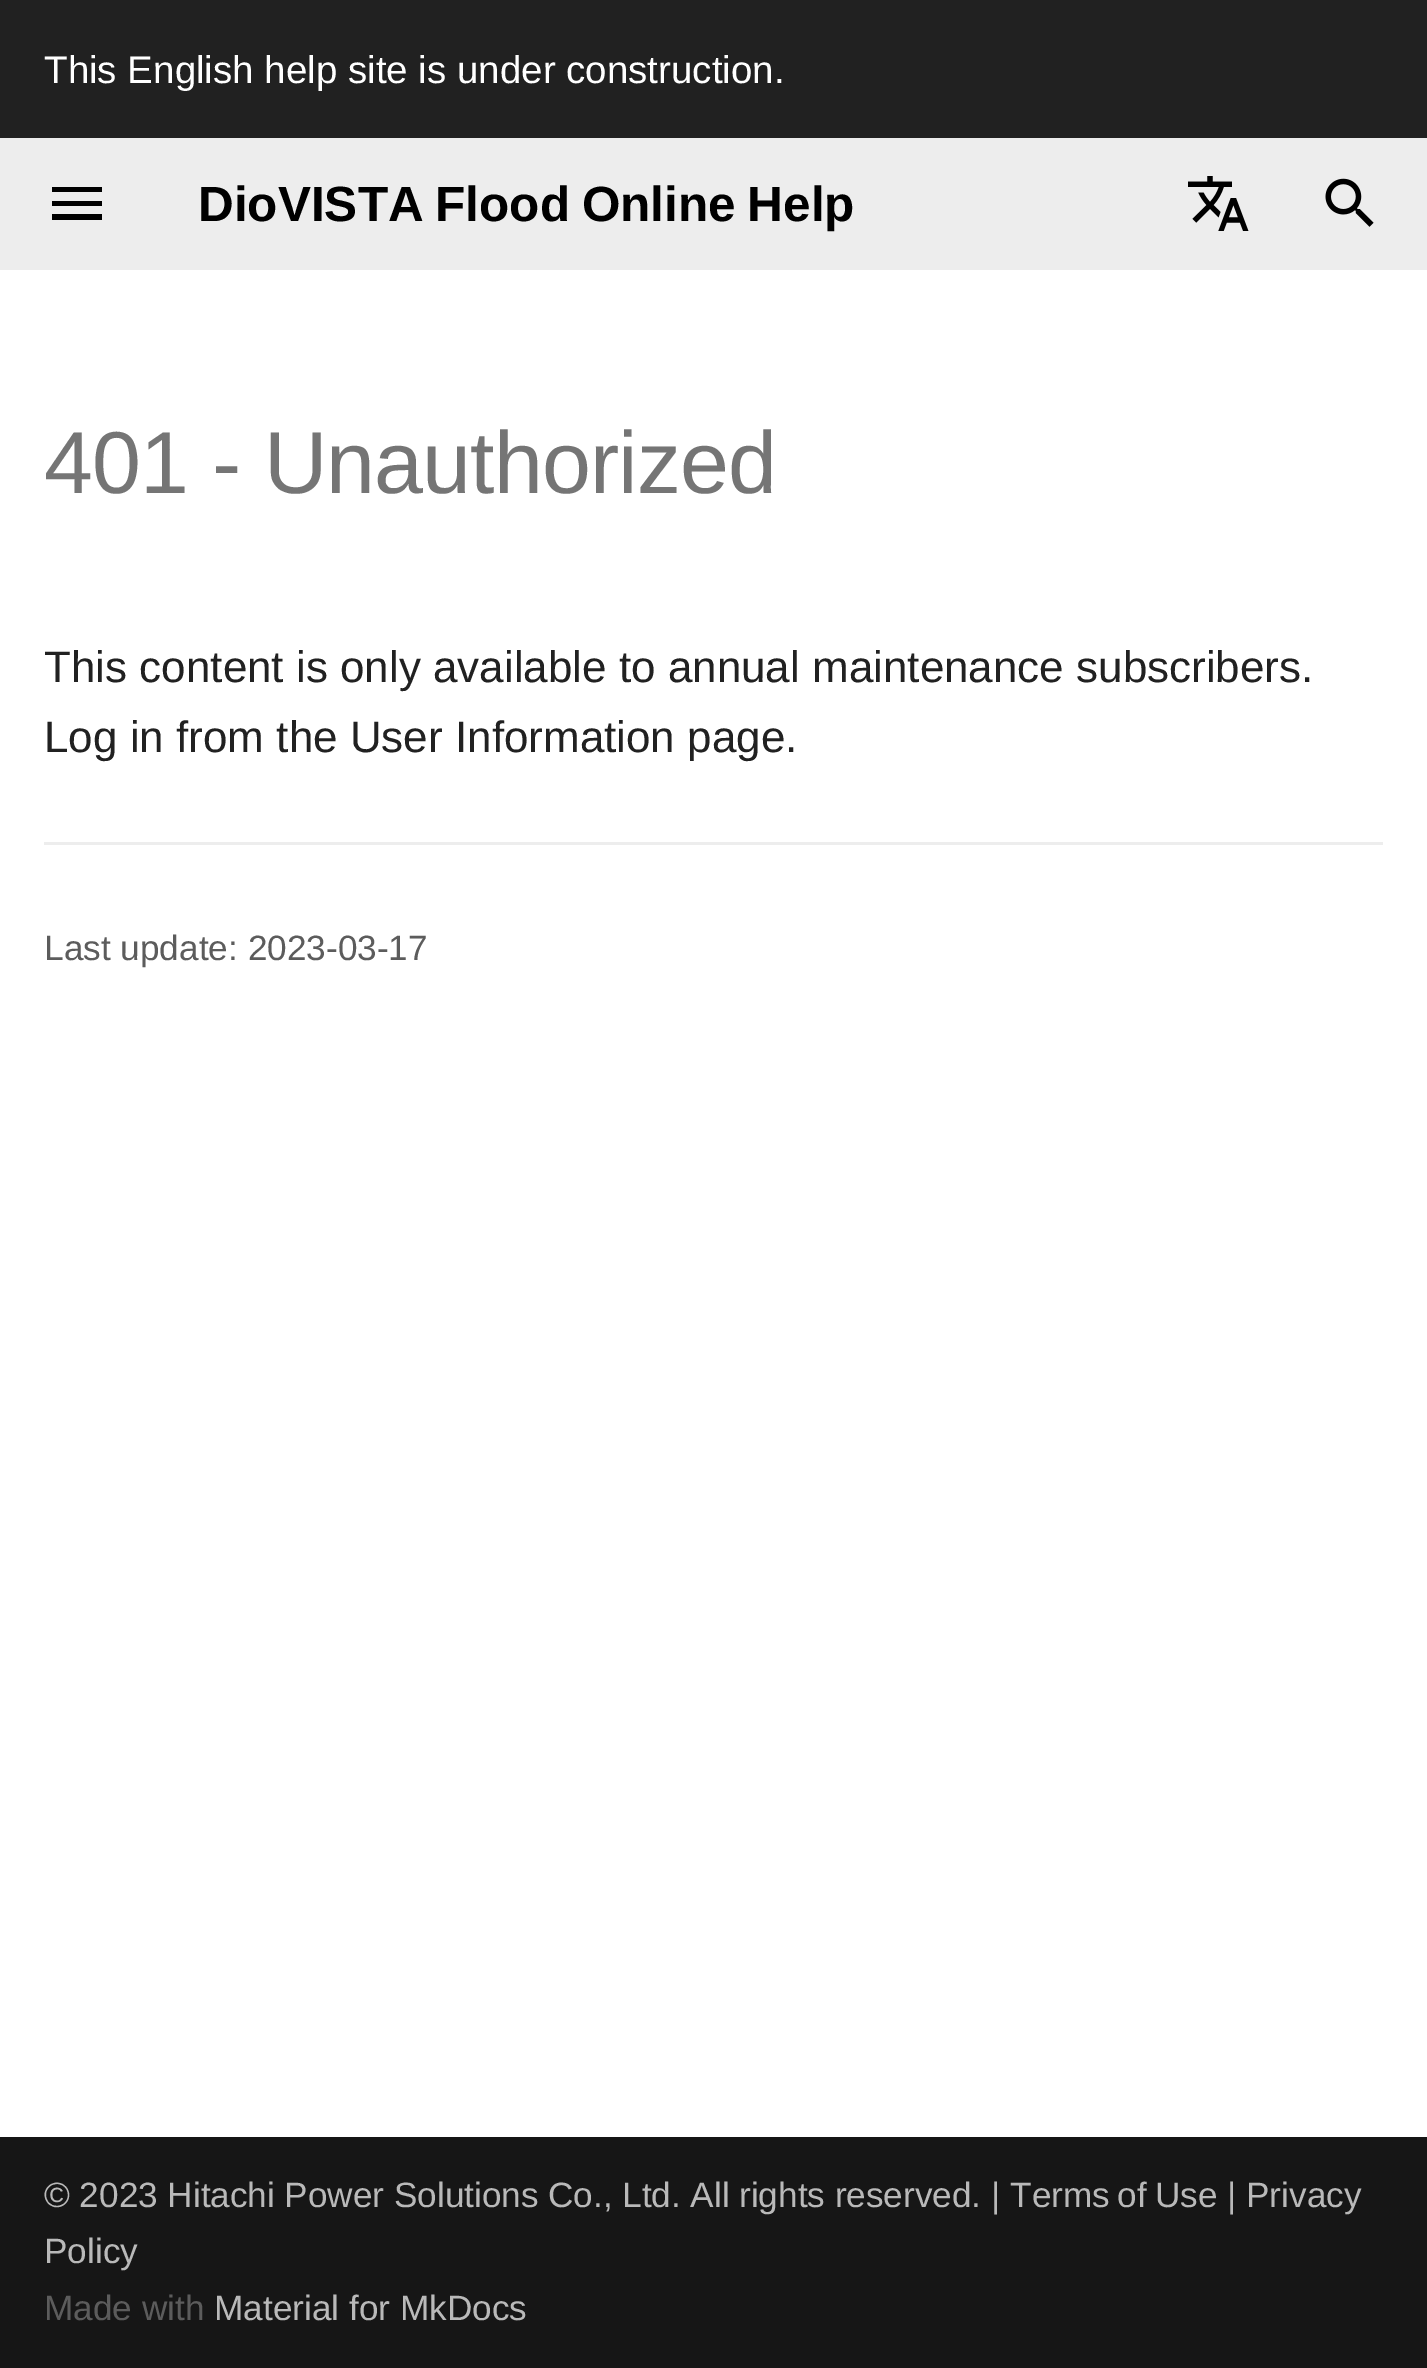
%!PS
<< /PageSize [1427 2368] >> setpagedevice
/picture { 5 dict begin { /h /w /y /x /name } { exch def } forall
  gsave x y translate w h scale
  w h 8 [w 0 0 h 0 0] name (r) file false 3 colorimage grestore end } def
0 2368 translate 1 -1 scale
4 setmiterlimit
1 setgray
0 0 1427 2368 rectfill
0.129 setgray
0 0 1427 138 rectfill
/LiberationSans-Regular [38.5 0 0 -38.5 0 0] selectfont
1 setgray
44 83 moveto (This English help site is under construction.) show
0.929 setgray
0 138 1427 132 rectfill
0 setgray
newpath 52 187 moveto 102 187 lineto 102 192 lineto 52 192 lineto 52 187 lineto 52 201 moveto 102 201 lineto 102 206 lineto 52 206 lineto 52 201 lineto 52 214 moveto 102 214 lineto 102 220 lineto 52 220 lineto closepath fill
/LiberationSans-Bold [49.5 0 0 -49.5 0 0] selectfont
198 221 moveto -2 0 32 (DioVISTA Flood Online Help) widthshow
(img1.rgb) 1188 176 61 55 picture
(img2.rgb) 1325 178 49 49 picture
/LiberationSans-Regular [88 0 0 -88 0 0] selectfont
0.459 setgray
44 493 moveto -0.9 0 (401 - Unauthorized) ashow
/LiberationSans-Regular [44 0 0 -44 0 0] selectfont
0.129 setgray
44 682 moveto (This content is only available to annual maintenance subscribers.) show
44 752 moveto (Log in from the User Information page.) show
0.929 setgray
44 842 1339 3 rectfill
/LiberationSans-Regular [35.2 0 0 -35.2 0 0] selectfont
0.361 setgray
44 960 moveto (Last update: 2023-03-17) show
0.086 setgray
0 2137 1427 231 rectfill
0.725 setgray
44 2207 moveto -0.25 0 32 (© 2023 Hitachi Power Solutions Co., Ltd. All rights reserved. |) widthshow
1010 2207 moveto -2 0 32 (Terms of Use) widthshow
1227 2207 moveto (| Privacy) show
44 2263 moveto (Policy) show
0.361 setgray
44 2320 moveto (Made with) show
0.725 setgray
214 2320 moveto (Material for MkDocs) show
showpage
